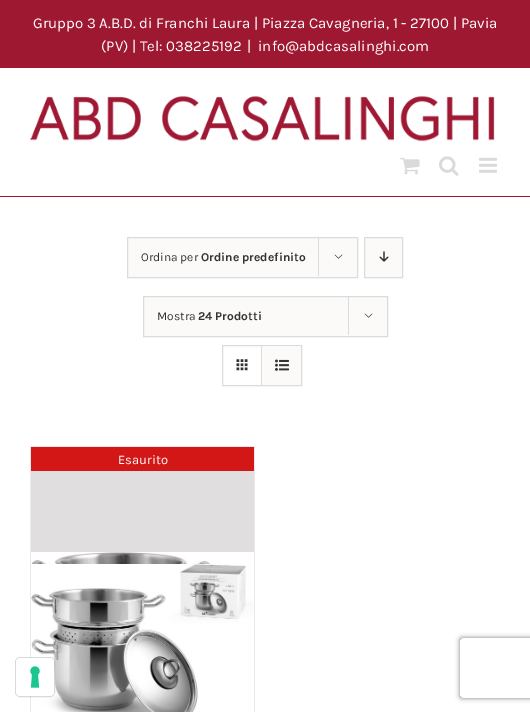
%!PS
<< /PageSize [530 712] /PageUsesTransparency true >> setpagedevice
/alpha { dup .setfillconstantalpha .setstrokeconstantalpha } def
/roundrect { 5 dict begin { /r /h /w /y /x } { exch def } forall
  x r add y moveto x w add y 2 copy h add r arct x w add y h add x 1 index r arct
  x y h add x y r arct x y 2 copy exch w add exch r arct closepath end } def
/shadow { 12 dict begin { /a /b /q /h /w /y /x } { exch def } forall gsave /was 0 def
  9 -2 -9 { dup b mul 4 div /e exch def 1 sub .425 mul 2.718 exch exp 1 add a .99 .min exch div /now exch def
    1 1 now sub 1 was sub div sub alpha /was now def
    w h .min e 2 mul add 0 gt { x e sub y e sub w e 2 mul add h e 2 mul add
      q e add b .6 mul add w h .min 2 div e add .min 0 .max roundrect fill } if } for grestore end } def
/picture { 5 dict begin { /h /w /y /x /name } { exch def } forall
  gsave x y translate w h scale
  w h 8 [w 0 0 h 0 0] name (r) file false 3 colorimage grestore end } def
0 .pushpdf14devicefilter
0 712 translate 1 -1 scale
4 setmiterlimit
1 setgray
0 0 530 712 rectfill
0.62 0.094 0.196 setrgbcolor
0 0 530 68 rectfill
/Karla-Regular [15 0 0 -15 0 0] selectfont
1 setgray
33 28 moveto 0.25 0 32 (Gruppo 3 A.B.D. di Franchi Laura | Piazza Cavagneria, 1 - 27100 | Pavia) widthshow
101 51 moveto (\(PV\) | Tel: 038225192) show
247 51 moveto (|) show
258 51 moveto (info@abdcasalinghi.com) show
0.62 0.094 0.196 setrgbcolor
0 196 530 1 rectfill
(img1.rgb) 30 96 465 46 picture
(img2.rgb) 400 157 20 18 picture
(img3.rgb) 439 156 20 20 picture
(img4.rgb) 479 157 18 16 picture
0.984 0.98 0.976 setrgbcolor
newpath 127.5 237.5 moveto 357.5 237.5 lineto 357.5 277.5 lineto 127.5 277.5 lineto closepath gsave fill grestore
0.859 setgray
stroke
/Karla-Regular [12 0 0 -12 0 0] selectfont
0.2 setgray
141 261 moveto (Ordina per) show
/Karla-Bold [12 0 0 -12 0 0] selectfont
201 261 moveto (Ordine predefinito) show
0.859 setgray
318 237 1 39 rectfill
(img5.rgb) 334 254 9 5 picture
0.984 0.98 0.976 setrgbcolor
newpath 364.5 237.5 moveto 402.5 237.5 lineto 402.5 277.5 lineto 364.5 277.5 lineto closepath gsave fill grestore
0.859 setgray
stroke
(img6.rgb) 379 251 10 11 picture
0.984 0.98 0.976 setrgbcolor
newpath 143.5 296.5 moveto 387.5 296.5 lineto 387.5 336.5 lineto 143.5 336.5 lineto closepath gsave fill grestore
0.859 setgray
stroke
/Karla-Regular [12 0 0 -12 0 0] selectfont
0.2 setgray
157 320 moveto (Mostra) show
/Karla-Bold [12 0 0 -12 0 0] selectfont
198 320 moveto (24 Prodotti) show
0.859 setgray
348 296 1 39 rectfill
(img5.rgb) 364 313 9 5 picture
222.5 345.5 79 40 rectstroke
261 346 1 39 rectfill
(img7.rgb) 236 359 12 12 picture
0.984 0.98 0.976 setrgbcolor
262 346 39 39 rectfill
(img8.rgb) 275 359 14 12 picture
0.922 0.918 0.918 setrgbcolor
30 446 225 1 rectfill
254 446 1 266 rectfill
30 446 1 266 rectfill
0.827 0.086 0.086 setrgbcolor
31 447 223 24 rectfill
/Karla-Regular [13 0 0 -13 0 0] selectfont
1 setgray
118 464 moveto (Esaurito) show
0.878 0.871 0.871 setrgbcolor
31 471 223 81 rectfill
(img9.rgb) 31 552 223 12 picture
(img10.rgb) 31 564 223 148 picture
0.15 alpha
0 setgray
15.5 657.5 39 39 4.5 roundrect stroke
1 alpha
1 setgray
16 658 38 38 4 roundrect fill
(img11.rgb) 30 666 10 22 picture
gsave
newpath 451 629 moveto 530 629 lineto 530 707 lineto 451 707 lineto closepath 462 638 moveto 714 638 lineto 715 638 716 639 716 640 curveto 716 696 lineto 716 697 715 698 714 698 curveto 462 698 lineto 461 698 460 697 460 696 curveto 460 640 lineto 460 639 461 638 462 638 curveto closepath eoclip newpath
0.502 setgray
460 638 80 60 2 2.5 1 shadow
grestore
.poppdf14devicefilter showpage
